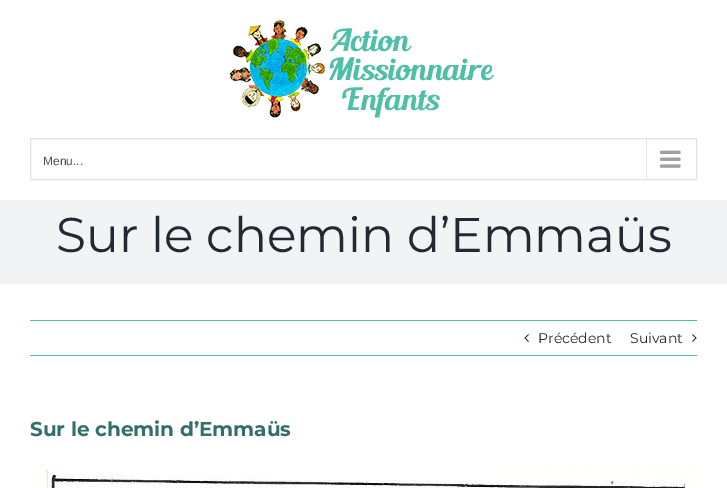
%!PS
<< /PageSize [727 488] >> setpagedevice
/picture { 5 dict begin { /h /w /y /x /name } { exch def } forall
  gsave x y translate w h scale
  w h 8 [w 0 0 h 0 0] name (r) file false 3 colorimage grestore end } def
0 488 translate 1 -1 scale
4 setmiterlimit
1 setgray
0 0 727 488 rectfill
(img1.rgb) 230 20 265 98 picture
0.886 setgray
30.5 138.5 666 41 rectstroke
/LiberationSans-Regular [12 0 0 -12 0 0] selectfont
0.29 0.306 0.341 setrgbcolor
43 165 moveto (Menu...) show
0.886 setgray
646 139 1 40 rectfill
(img2.rgb) 660 150 21 18 picture
0.949 0.953 0.961 setrgbcolor
0 200 727 84 rectfill
/Montserrat-Regular [48.75 0 0 -48.75 0 0] selectfont
0.129 0.161 0.204 setrgbcolor
56 252 moveto (Sur le chemin d’Emmaüs) show
0.282 0.753 0.675 setrgbcolor
30 320 667 1 rectfill
30 355 667 1 rectfill
(img3.rgb) 524 334 5 8 picture
/Montserrat-Regular [14 0 0 -14 0 0] selectfont
0.129 0.161 0.204 setrgbcolor
538 343 moveto (Précédent) show
630 343 moveto (Suivant) show
(img4.rgb) 692 334 5 8 picture
/Montserrat-Bold [20 0 0 -20 0 0] selectfont
0.2 0.431 0.416 setrgbcolor
30 436 moveto (Sur le chemin d’Emmaüs) show
(img5.rgb) 30 464 667 24 picture
showpage
